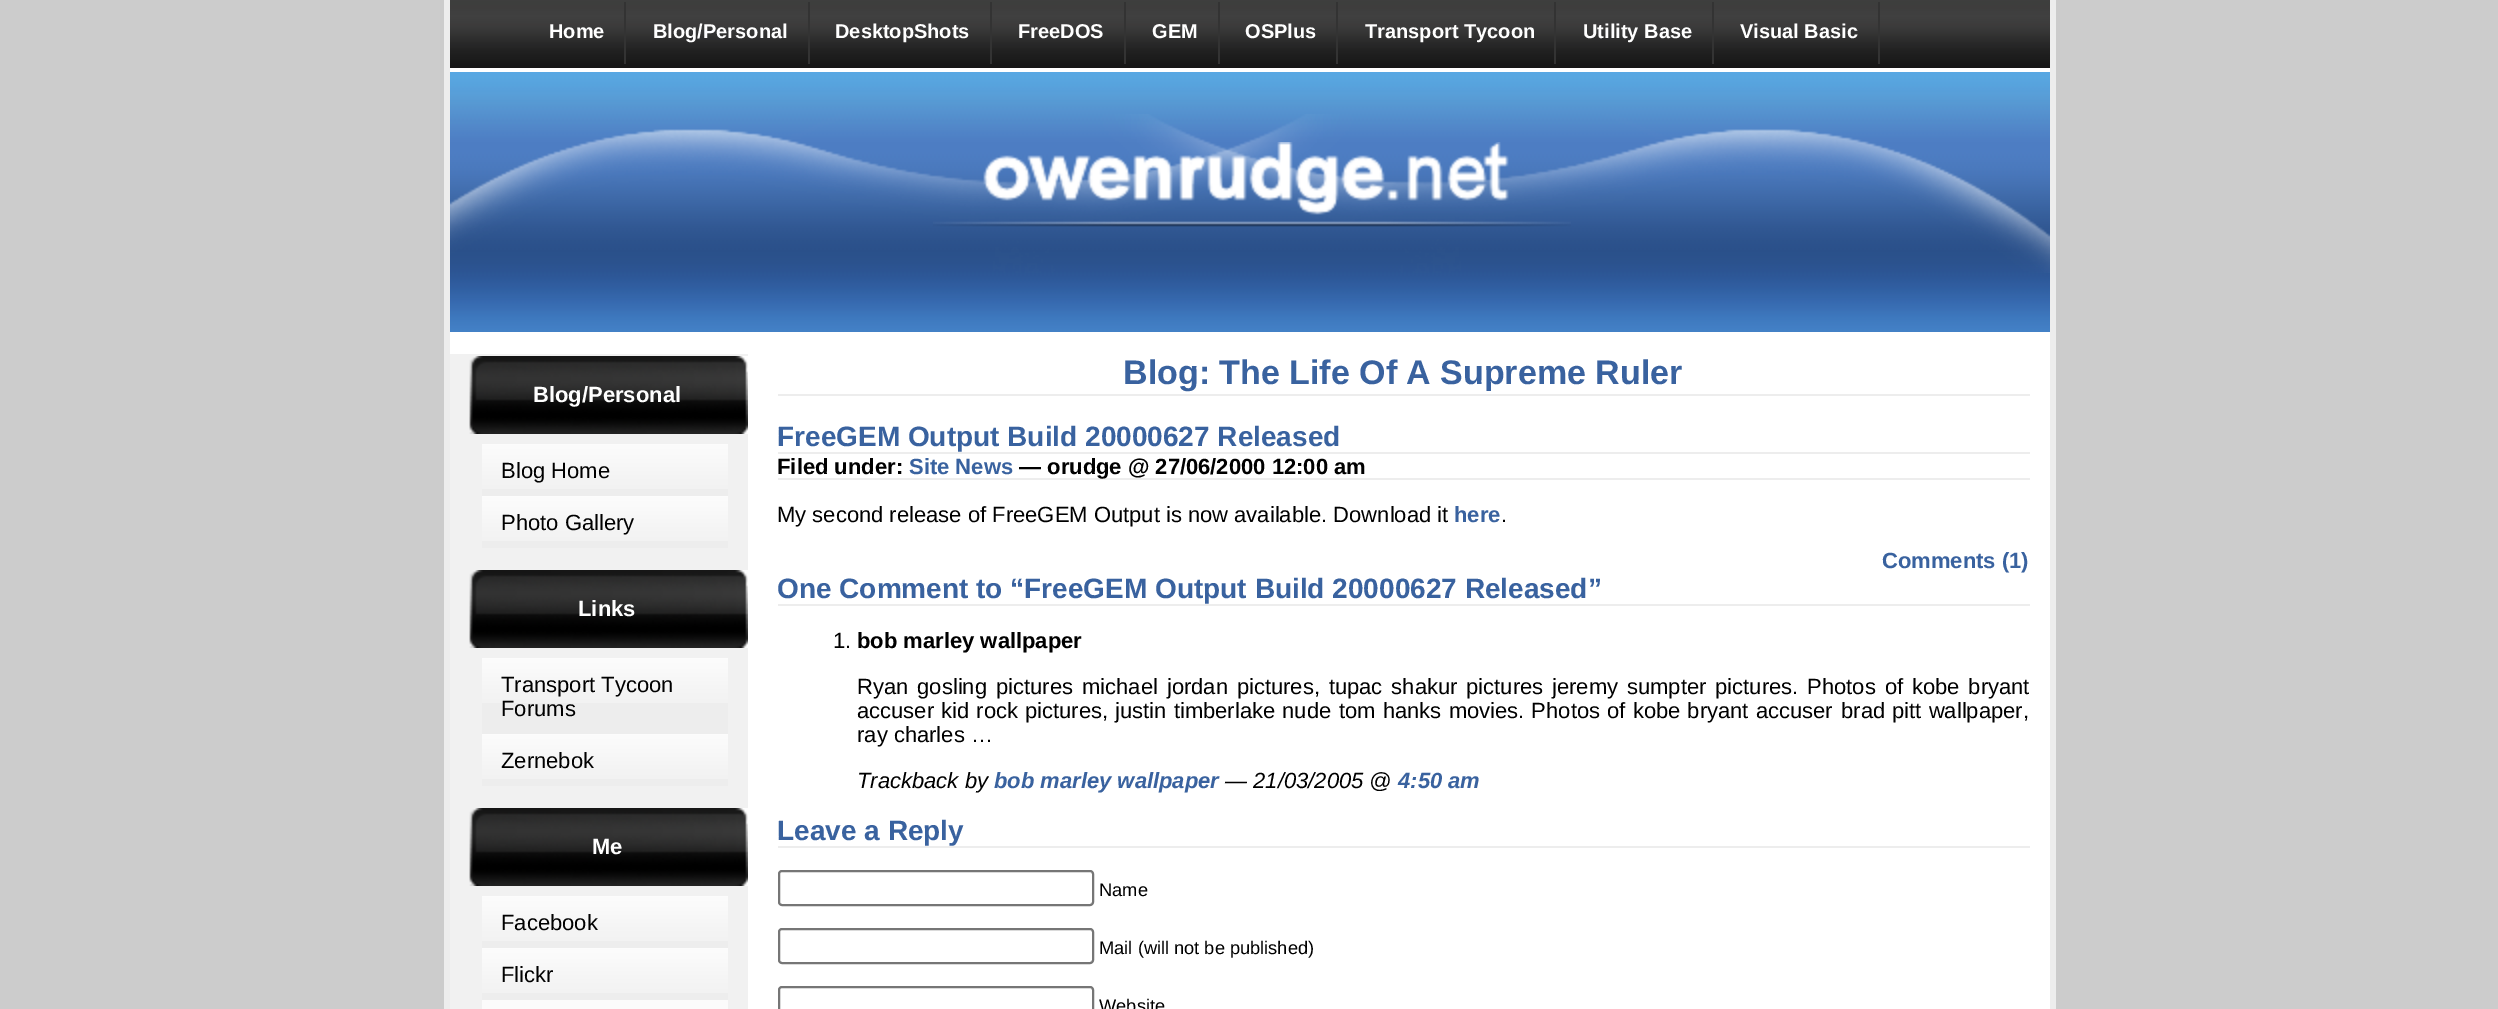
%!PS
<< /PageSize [2498 1009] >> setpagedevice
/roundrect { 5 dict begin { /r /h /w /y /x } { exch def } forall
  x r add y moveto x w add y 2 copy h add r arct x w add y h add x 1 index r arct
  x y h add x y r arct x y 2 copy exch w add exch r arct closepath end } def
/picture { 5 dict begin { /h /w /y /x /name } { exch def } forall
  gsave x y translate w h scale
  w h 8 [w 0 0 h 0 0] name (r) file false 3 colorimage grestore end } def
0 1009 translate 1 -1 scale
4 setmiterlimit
0.8 setgray
0 0 2498 1009 rectfill
1 setgray
450 332 1600 677 rectfill
0.929 setgray
2050 0 6 1009 rectfill
444 0 6 1009 rectfill
(img1.rgb) 450 0 1600 68 picture
1 setgray
450 68 1600 4 rectfill
/LiberationSans-Bold [20 0 0 -20 0 0] selectfont
549 38 moveto (Home) show
0.2 setgray
624 2 2 62 rectfill
1 setgray
653 38 moveto (Blog/Personal) show
0.2 setgray
808 2 2 62 rectfill
1 setgray
835 38 moveto (DesktopShots) show
0.2 setgray
990 2 2 62 rectfill
1 setgray
1018 38 moveto (FreeDOS) show
0.2 setgray
1124 2 2 62 rectfill
1 setgray
1152 38 moveto (GEM) show
0.2 setgray
1218 2 2 62 rectfill
1 setgray
1245 38 moveto (OSPlus) show
0.2 setgray
1336 2 2 62 rectfill
1 setgray
1365 38 moveto (Transport Tycoon) show
0.2 setgray
1554 2 2 62 rectfill
1 setgray
1583 38 moveto (Utility Base) show
0.2 setgray
1712 2 2 62 rectfill
1 setgray
1740 38 moveto (Visual Basic) show
0.2 setgray
1878 2 2 62 rectfill
(img2.rgb) 450 72 1600 260 picture
(img3.rgb) 450 114 1600 159 picture
(img4.rgb) 933 142 638 85 picture
0.945 setgray
450 354 298 655 rectfill
(img5.rgb) 469 356 279 78 picture
/LiberationSans-Bold [22 0 0 -22 0 0] selectfont
1 setgray
533 402 moveto (Blog/Personal) show
0.929 setgray
482 489 246 7 rectfill
(img6.rgb) 482 444 246 45 picture
/LiberationSans-Regular [22 0 0 -22 0 0] selectfont
0 setgray
501 478 moveto (Blog Home) show
0.929 setgray
482 541 246 7 rectfill
(img6.rgb) 482 496 246 45 picture
0 setgray
501 530 moveto (Photo Gallery) show
(img5.rgb) 469 570 279 78 picture
/LiberationSans-Bold [22 0 0 -22 0 0] selectfont
1 setgray
578 616 moveto (Links) show
0.929 setgray
482 703 246 31 rectfill
(img6.rgb) 482 658 246 45 picture
/LiberationSans-Regular [22 0 0 -22 0 0] selectfont
0 setgray
501 692 moveto (Transport Tycoon) show
501 716 moveto (Forums) show
0.929 setgray
482 779 246 7 rectfill
(img6.rgb) 482 734 246 45 picture
0 setgray
501 768 moveto (Zernebok) show
(img5.rgb) 469 808 279 78 picture
/LiberationSans-Bold [22 0 0 -22 0 0] selectfont
1 setgray
592 854 moveto (Me) show
0.929 setgray
482 941 246 7 rectfill
(img6.rgb) 482 896 246 45 picture
/LiberationSans-Regular [22 0 0 -22 0 0] selectfont
0 setgray
501 930 moveto (Facebook) show
0.929 setgray
482 993 246 7 rectfill
(img6.rgb) 482 948 246 45 picture
0 setgray
501 982 moveto (Flickr) show
0.984 setgray
482 1000 246 9 rectfill
0.929 setgray
778 394 1252 2 rectfill
/LiberationSans-Bold [34 0 0 -34 0 0] selectfont
0.224 0.384 0.624 setrgbcolor
1123 384 moveto (Blog: The Life Of A Supreme Ruler) show
0.929 setgray
778 452 1252 2 rectfill
/LiberationSans-Bold [28 0 0 -28 0 0] selectfont
0.224 0.384 0.624 setrgbcolor
777 446 moveto (FreeGEM Output Build 20000627 Released) show
0.929 setgray
778 478 1252 2 rectfill
/LiberationSans-Bold [22 0 0 -22 0 0] selectfont
0 setgray
777 474 moveto (Filed under:) show
0.224 0.384 0.624 setrgbcolor
909 474 moveto (Site News) show
0 setgray
1019 474 moveto (— orudge @ 27/06/2000 12:00 am) show
/LiberationSans-Regular [22 0 0 -22 0 0] selectfont
777 522 moveto (My second release of FreeGEM Output is now available. Download it) show
/LiberationSans-Bold [22 0 0 -22 0 0] selectfont
0.224 0.384 0.624 setrgbcolor
1454 522 moveto (here) show
/LiberationSans-Regular [22 0 0 -22 0 0] selectfont
0 setgray
1501 522 moveto (.) show
/LiberationSans-Bold [22 0 0 -22 0 0] selectfont
0.224 0.384 0.624 setrgbcolor
1882 568 moveto (Comments \(1\)) show
0.929 setgray
778 604 1252 2 rectfill
/LiberationSans-Bold [28 0 0 -28 0 0] selectfont
0.224 0.384 0.624 setrgbcolor
777 598 moveto (One Comment to “FreeGEM Output Build 20000627 Released”) show
/LiberationSans-Regular [22 0 0 -22 0 0] selectfont
0 setgray
833 648 moveto (1.) show
/LiberationSans-Bold [22 0 0 -22 0 0] selectfont
857 648 moveto (bob marley wallpaper) show
/LiberationSans-Regular [22 0 0 -22 0 0] selectfont
857 694 moveto 2.75 0 32 (Ryan gosling pictures) widthshow
1082 694 moveto 2.75 0 32 (michael jordan pictures, tupac shakur pictures) widthshow
1552 694 moveto 2.75 0 32 (jeremy sumpter pictures. Photos of kobe bryant) widthshow
857 718 moveto (accuser) show
941 718 moveto 1 0 32 (kid rock pictures, justin timberlake nude) widthshow
1339 718 moveto 1 0 32 (tom hanks movies. Photos of kobe bryant accuser) widthshow
1841 718 moveto 1 0 32 (brad pitt wallpaper,) widthshow
857 742 moveto (ray charles …) show
/LiberationSans-Italic [22 0 0 -22 0 0] selectfont
857 788 moveto (Trackback by) show
/LiberationSans-BoldItalic [22 0 0 -22 0 0] selectfont
0.224 0.384 0.624 setrgbcolor
994 788 moveto (bob marley wallpaper) show
/LiberationSans-Italic [22 0 0 -22 0 0] selectfont
0 setgray
1225 788 moveto (— 21/03/2005 @) show
/LiberationSans-BoldItalic [22 0 0 -22 0 0] selectfont
0.224 0.384 0.624 setrgbcolor
1398 788 moveto (4:50 am) show
0.929 setgray
778 846 1252 2 rectfill
/LiberationSans-Bold [28 0 0 -28 0 0] selectfont
0.224 0.384 0.624 setrgbcolor
777 840 moveto (Leave a Reply) show
0.463 setgray
2 setlinewidth
779 871 314 34 3 roundrect stroke
/LiberationSans-Regular [18.25 0 0 -18.25 0 0] selectfont
0 setgray
1099 896 moveto (Name) show
0.463 setgray
779 929 314 34 3 roundrect stroke
0 setgray
1099 954 moveto (Mail \(will not be published\)) show
0.463 setgray
779 987 314 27 3 roundrect stroke
0 setgray
1099 1012 moveto (Website) show
showpage
